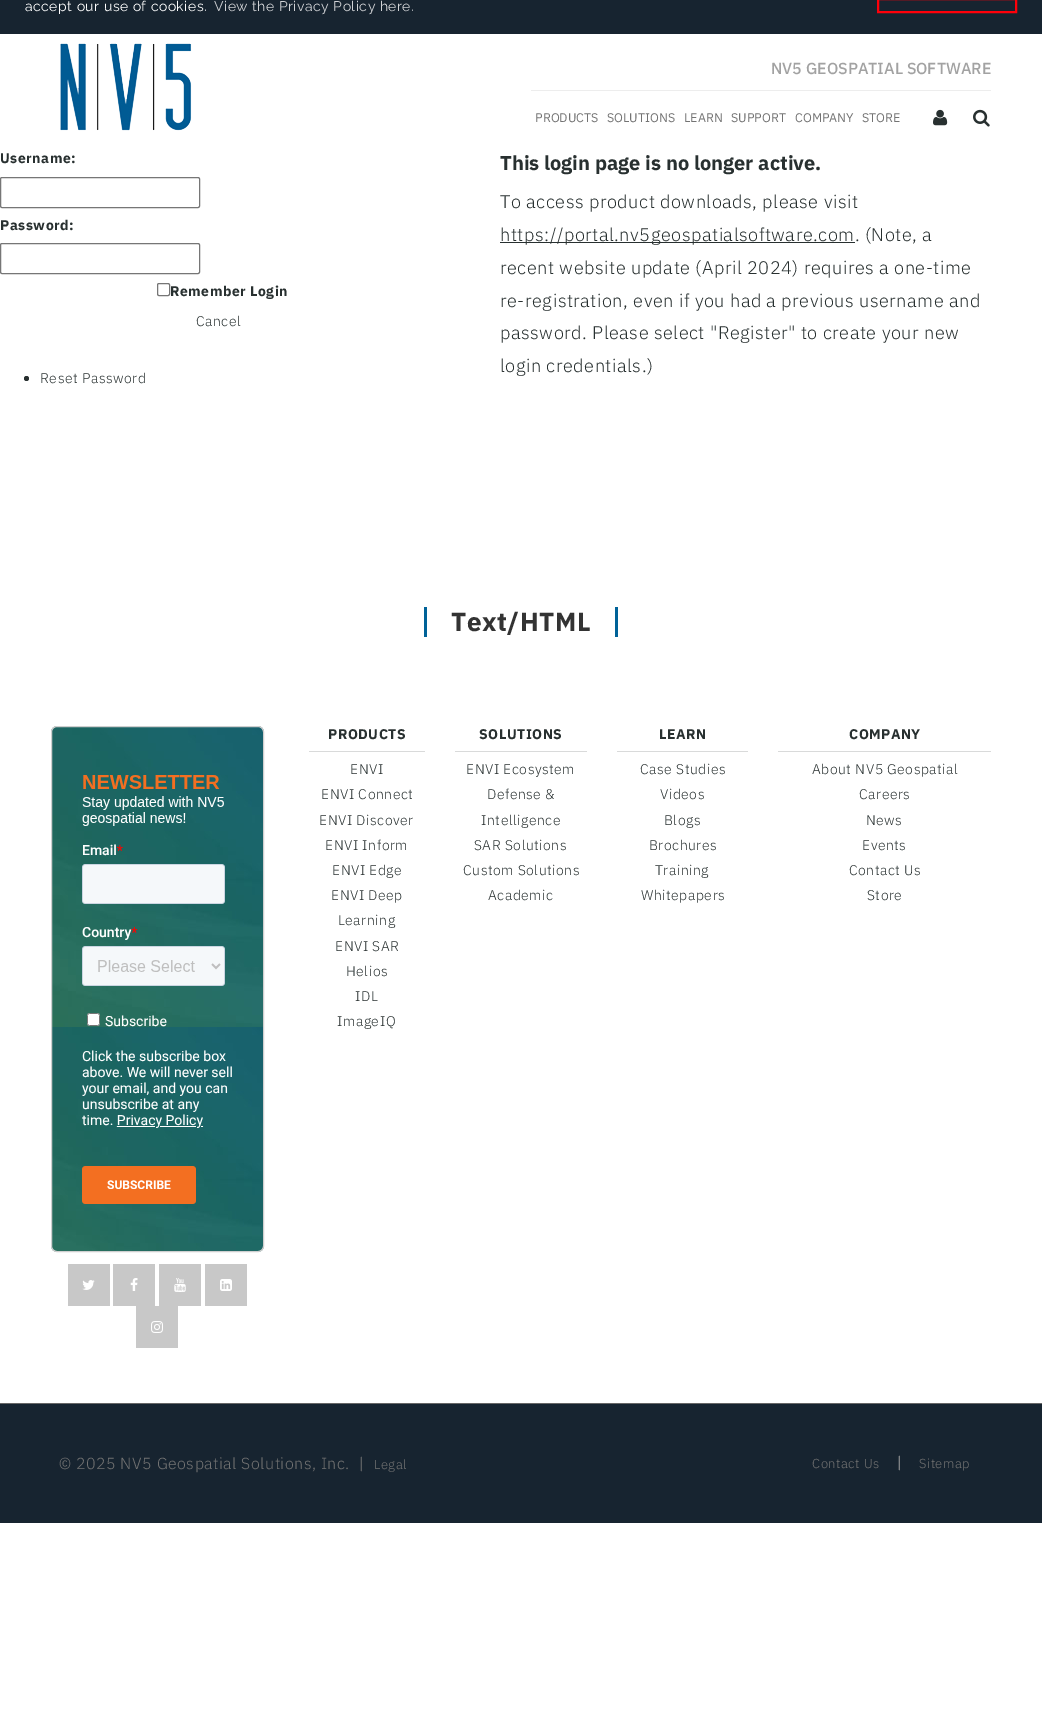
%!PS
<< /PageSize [1042 1712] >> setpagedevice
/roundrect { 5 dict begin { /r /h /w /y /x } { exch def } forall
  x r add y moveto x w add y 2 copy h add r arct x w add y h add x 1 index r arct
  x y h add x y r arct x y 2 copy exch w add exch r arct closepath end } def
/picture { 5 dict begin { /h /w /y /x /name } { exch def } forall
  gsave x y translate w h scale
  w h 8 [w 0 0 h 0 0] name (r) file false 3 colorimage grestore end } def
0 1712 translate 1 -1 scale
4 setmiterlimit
1 setgray
0 0 1042 1712 rectfill
0.09 0.141 0.188 setrgbcolor
0 0 1042 34 rectfill
/Raleway-Thin [14 0 0 -14 0 0] selectfont
1 setgray
25 11 moveto 0.5 0 (accept our use of cookies.) ashow
0.82 0.827 0.839 setrgbcolor
214 11 moveto 0.5 0 (View the Privacy Policy here.) ashow
1 0 0.039 setrgbcolor
2 setlinewidth
878 -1 138 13 rectstroke
(img1.rgb) 60 43 132 88 picture
0.929 setgray
531 90 460 1 rectfill
/IBMPlexSans-Medium [16 0 0 -16 0 0] selectfont
0.635 setgray
771 74 moveto (NV5 GEOSPATIAL SOFTWARE) show
/IBMPlexSans-Regular [12.5 0 0 -12.5 0 0] selectfont
0.451 setgray
535 122 moveto (PRODUCTS) show
607 122 moveto (SOLUTIONS) show
684 122 moveto (LEARN) show
731 122 moveto (SUPPORT) show
795 122 moveto (COMPANY) show
862 122 moveto (STORE) show
(img2.rgb) 933 109 15 17 picture
(img3.rgb) 973 109 17 18 picture
/IBMPlexSans-Bold [14 0 0 -14 0 0] selectfont
0.157 0.188 0.188 setrgbcolor
0 163 moveto 0.5 0 (Username:) ashow
0.463 setgray
1 setlinewidth
0.5 177.5 199 30 1.5 roundrect stroke
0.157 0.188 0.188 setrgbcolor
0 230 moveto 0.5 0 (Password:) ashow
0.463 setgray
0.5 243.5 199 30 1.5 roundrect stroke
157.5 283.5 12 12 1.5 roundrect stroke
0.157 0.188 0.188 setrgbcolor
170 296 moveto 0.5 0 (Remember Login) ashow
/IBMPlexSans-Light [14 0 0 -14 0 0] selectfont
196 326 moveto 0.5 0 (Cancel) ashow
newpath 26.5 378.5 2.5 0 360 arc closepath fill
40 383 moveto 0.5 0 (Reset Password) ashow
/IBMPlexSans-Bold [20 0 0 -20 0 0] selectfont
500 170 moveto (This login page is no longer active.) show
/IBMPlexSans-Light [18.2 0 0 -18.2 0 0] selectfont
500 208 moveto 0.5 0 (To access product downloads, please visit) ashow
500 242 355 1 rectfill
500 241 moveto 0.5 0 (https://portal.nv5geospatialsoftware.com. \(Note, a) ashow
500 274 moveto 0.5 0 (recent website update \(April 2024\) requires a one-time) ashow
500 307 moveto 0.5 0 (re-registration, even if you had a previous username and) ashow
500 339 moveto 0.5 0 (password. Please select "Register" to create your new) ashow
500 372 moveto 0.5 0 (login credentials.\)) ashow
0 0.384 0.596 setrgbcolor
424 607 3 30 rectfill
/IBMPlexSans-Bold [26 0 0 -26 0 0] selectfont
0.2 setgray
451 631 moveto 0.5 0 (Text/HTML) ashow
0 0.384 0.596 setrgbcolor
615 607 3 30 rectfill
(img4.rgb) 51 726 213 526 picture
0.812 setgray
51.5 726.5 212 525 5.5 roundrect stroke
(img5.rgb) 82 775 150 429 picture
0.784 setgray
68 1264 42 42 rectfill
(img6.rgb) 82 1280 13 10 picture
113 1264 42 42 rectfill
(img7.rgb) 130 1278 8 13 picture
159 1264 42 42 rectfill
(img8.rgb) 174 1278 12 14 picture
205 1264 42 42 rectfill
(img9.rgb) 220 1279 12 12 picture
136 1306 42 42 rectfill
(img10.rgb) 151 1321 12 12 picture
/IBMPlexSans-Bold [14 0 0 -14 0 0] selectfont
0.157 0.188 0.188 setrgbcolor
328 739 moveto 0.5 0 (PRODUCTS) ashow
0.851 0.855 0.855 setrgbcolor
309 751 116 1 rectfill
/IBMPlexSans-Light [14 0 0 -14 0 0] selectfont
0.157 0.188 0.188 setrgbcolor
350 774 moveto 0.5 0 (ENVI) ashow
321 799 moveto 0.5 0 (ENVI Connect) ashow
319 825 moveto 0.5 0 (ENVI Discover) ashow
325 850 moveto 0.5 0 (ENVI Inform) ashow
332 875 moveto 0.5 0 (ENVI Edge) ashow
331 900 moveto 0.5 0 (ENVI Deep) ashow
338 925 moveto 0.5 0 (Learning) ashow
335 951 moveto 0.5 0 (ENVI SAR) ashow
346 976 moveto 0.5 0 (Helios) ashow
355 1001 moveto 0.5 0 (IDL) ashow
337 1026 moveto 0.5 0 (ImageIQ) ashow
/IBMPlexSans-Bold [14 0 0 -14 0 0] selectfont
479 739 moveto 0.5 0 (SOLUTIONS) ashow
0.851 0.855 0.855 setrgbcolor
455 751 132 1 rectfill
/IBMPlexSans-Light [14 0 0 -14 0 0] selectfont
0.157 0.188 0.188 setrgbcolor
466 774 moveto 0.5 0 (ENVI Ecosystem) ashow
487 799 moveto 0.5 0 (Defense &) ashow
481 825 moveto 0.5 0 (Intelligence) ashow
474 850 moveto 0.5 0 (SAR Solutions) ashow
463 875 moveto 0.5 0 (Custom Solutions) ashow
488 900 moveto 0.5 0 (Academic) ashow
/IBMPlexSans-Bold [14 0 0 -14 0 0] selectfont
659 739 moveto 0.5 0 (LEARN) ashow
0.851 0.855 0.855 setrgbcolor
617 751 131 1 rectfill
/IBMPlexSans-Light [14 0 0 -14 0 0] selectfont
0.157 0.188 0.188 setrgbcolor
640 774 moveto 0.5 0 (Case Studies) ashow
660 799 moveto 0.5 0 (Videos) ashow
664 825 moveto 0.5 0 (Blogs) ashow
649 850 moveto 0.5 0 (Brochures) ashow
655 875 moveto 0.5 0 (Training) ashow
641 900 moveto 0.5 0 (Whitepapers) ashow
/IBMPlexSans-Bold [14 0 0 -14 0 0] selectfont
849 739 moveto 0.5 0 (COMPANY) ashow
0.851 0.855 0.855 setrgbcolor
778 751 213 1 rectfill
/IBMPlexSans-Light [14 0 0 -14 0 0] selectfont
0.157 0.188 0.188 setrgbcolor
812 774 moveto 0.5 0 (About NV5 Geospatial) ashow
859 799 moveto 0.5 0 (Careers) ashow
866 825 moveto 0.5 0 (News) ashow
862 850 moveto 0.5 0 (Events) ashow
849 875 moveto 0.5 0 (Contact Us) ashow
867 900 moveto 0.5 0 (Store) ashow
0.404 setgray
0 1403 1042 1 rectfill
0.09 0.141 0.188 setrgbcolor
0 1404 1042 119 rectfill
/IBMPlexSans-Light [16 0 0 -16 0 0] selectfont
0.451 setgray
59 1469 moveto 0.5 0 (© 2025 NV5 Geospatial Solutions, Inc.) ashow
359 1469 moveto 0.5 0 (|) ashow
/IBMPlexSans-Light [13 0 0 -13 0 0] selectfont
374 1469 moveto 0.5 0 (Legal) ashow
812 1468 moveto 0.5 0 (Contact Us) ashow
/IBMPlexSans-Light [16 0 0 -16 0 0] selectfont
0.635 setgray
897 1468 moveto 0.5 0 (|) ashow
/IBMPlexSans-Light [13 0 0 -13 0 0] selectfont
0.451 setgray
919 1468 moveto 0.5 0 (Sitemap) ashow
showpage
